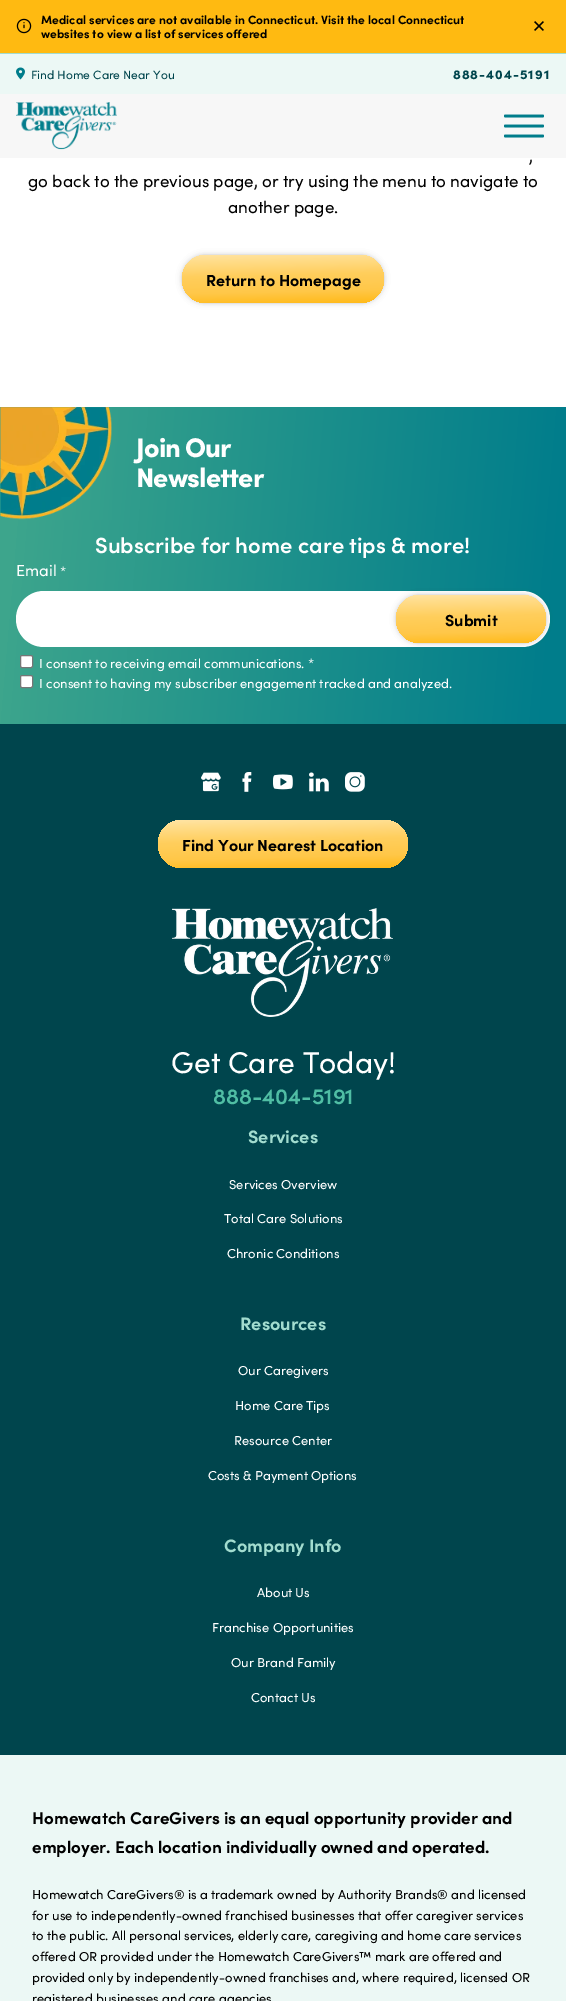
%!PS
<< /PageSize [566 2001] /PageUsesTransparency true >> setpagedevice
/alpha { dup .setfillconstantalpha .setstrokeconstantalpha } def
/roundrect { 5 dict begin { /r /h /w /y /x } { exch def } forall
  x r add y moveto x w add y 2 copy h add r arct x w add y h add x 1 index r arct
  x y h add x y r arct x y 2 copy exch w add exch r arct closepath end } def
/shadow { 12 dict begin { /a /b /q /h /w /y /x } { exch def } forall gsave /was 0 def
  9 -2 -9 { dup b mul 4 div /e exch def 1 sub .425 mul 2.718 exch exp 1 add a .99 .min exch div /now exch def
    1 1 now sub 1 was sub div sub alpha /was now def
    w h .min e 2 mul add 0 gt { x e sub y e sub w e 2 mul add h e 2 mul add
      q e add b .6 mul add w h .min 2 div e add .min 0 .max roundrect fill } if } for grestore end } def
/picture { 5 dict begin { /h /w /y /x /name } { exch def } forall
  gsave x y translate w h scale
  w h 8 [w 0 0 h 0 0] name (r) file false 3 colorimage grestore end } def
0 .pushpdf14devicefilter
0 2001 translate 1 -1 scale
4 setmiterlimit
1 setgray
0 0 566 2001 rectfill
1 0.729 0.067 setrgbcolor
0 0 566 53 rectfill
0.635 0.863 0.812 setrgbcolor
0 53 566 1 rectfill
(img1.rgb) 16 18 16 16 picture
/Sofia-Bold [12 0 0 -12 0 0] selectfont
0 setgray
41 24 moveto (Medical services are not available in Connecticut. Visit the local Connecticut) show
41 38 moveto (websites to view a list of services offered) show
(img2.rgb) 534 21 10 10 picture
0.969 setgray
0 94 566 64 rectfill
0.925 0.973 0.961 setrgbcolor
0 54 566 40 rectfill
(img3.rgb) 16 67 9 13 picture
/Sofia-Regular [12 0 0 -12 0 0] selectfont
0 0.271 0.302 setrgbcolor
31 79 moveto (Find Home Care Near You) show
/Sofia-Black [13 0 0 -13 0 0] selectfont
453 79 moveto 1 0 (888-404-5191) ashow
(img4.rgb) 16 102 101 48 picture
(img5.rgb) 504 114 40 24 picture
/Sofia-Regular [17 0 0 -17 0 0] selectfont
0 setgray
529 162 moveto (,) show
28 187 moveto (go back to the previous page, or try using the menu to navigate to) show
228 213 moveto (another page.) show
182 255 202 48 24 1.5 0.1 shadow
182 255 202 48 24 3 0.09 shadow
182 255 202 48 24 4 0.05 shadow
gsave 182 255 202 48 24 roundrect clip newpath
<< /ShadingType 2 /ColorSpace /DeviceRGB /Coords [282 241 284 326] /Extend [true true] /Function << /FunctionType 3 /Domain [0 1] /Functions [<< /FunctionType 2 /Domain [0 1] /C0 [1 0.941 0.8] /C1 [1 0.871 0.561] /N 1 >> << /FunctionType 2 /Domain [0 1] /C0 [1 0.871 0.561] /C1 [1 0.808 0.361] /N 1 >> << /FunctionType 2 /Domain [0 1] /C0 [1 0.808 0.361] /C1 [1 0.78 0.282] /N 1 >> << /FunctionType 2 /Domain [0 1] /C0 [1 0.78 0.282] /C1 [1 0.71 0.039] /N 1 >> << /FunctionType 2 /Domain [0 1] /C0 [1 0.71 0.039] /C1 [0.859 0.612 0] /N 1 >>] /Bounds [0.2 0.4 0.6 0.8] /Encode [0 1 0 1 0 1 0 1 0 1] >> >> shfill grestore
/Sofia-Bold [16 0 0 -16 0 0] selectfont
206 286 moveto (Return to Homepage) show
gsave newpath 0 407 moveto 566 407 lineto 566 724 lineto 0 724 lineto closepath clip newpath
<< /ShadingType 2 /ColorSpace /DeviceRGB /Coords [-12 540 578 591] /Extend [true true] /Function << /FunctionType 3 /Domain [0 1] /Functions [<< /FunctionType 2 /Domain [0 1] /C0 [0.239 0.647 0.549] /C1 [0.239 0.647 0.549] /N 1 >> << /FunctionType 2 /Domain [0 1] /C0 [0.239 0.647 0.549] /C1 [0 0.49 0.545] /N 1 >> << /FunctionType 2 /Domain [0 1] /C0 [0 0.49 0.545] /C1 [0 0.49 0.545] /N 1 >>] /Bounds [0.04 0.96] /Encode [0 1 0 1 0 1] >> >> shfill grestore
(img6.rgb) 0 407 112 113 picture
/Sofia-Black [27 0 0 -27 0 0] selectfont
1 setgray
136 457 moveto -0.9 0 (Join Our) ashow
136 487 moveto -0.9 0 (Newsletter) ashow
/Sofia-SemiBold [22 0 0 -22 0 0] selectfont
95 553 moveto (Subscribe for home care tips & more!) show
newpath 44 591 moveto 392 591 lineto 392 647 lineto 44 647 lineto 28.5 647 16 634.5 16 619 curveto 16 603.5 28.5 591 44 591 curveto closepath fill
/Sofia-Regular [16 0 0 -16 0 0] selectfont
16 576 moveto (Email) show
/Sofia-Regular [13 0 0 -13 0 0] selectfont
60 576 moveto (*) show
newpath 392 591 moveto 522 591 lineto 537.5 591 550 603.5 550 619 curveto 550 634.5 537.5 647 522 647 curveto 392 647 lineto closepath fill
0 setgray
396 595 150 48 24 1.5 0.1 shadow
396 595 150 48 24 3 0.09 shadow
396 595 150 48 24 4 0.05 shadow
gsave 396 595 150 48 24 roundrect clip newpath
<< /ShadingType 2 /ColorSpace /DeviceRGB /Coords [470 582 472 666] /Extend [true true] /Function << /FunctionType 3 /Domain [0 1] /Functions [<< /FunctionType 2 /Domain [0 1] /C0 [1 0.941 0.8] /C1 [1 0.871 0.561] /N 1 >> << /FunctionType 2 /Domain [0 1] /C0 [1 0.871 0.561] /C1 [1 0.808 0.361] /N 1 >> << /FunctionType 2 /Domain [0 1] /C0 [1 0.808 0.361] /C1 [1 0.78 0.282] /N 1 >> << /FunctionType 2 /Domain [0 1] /C0 [1 0.78 0.282] /C1 [1 0.71 0.039] /N 1 >> << /FunctionType 2 /Domain [0 1] /C0 [1 0.71 0.039] /C1 [0.859 0.612 0] /N 1 >>] /Bounds [0.2 0.4 0.6 0.8] /Encode [0 1 0 1 0 1 0 1 0 1] >> >> shfill grestore
/Sofia-Bold [16 0 0 -16 0 0] selectfont
445 626 moveto (Submit) show
1 setgray
20.5 655.5 12 12 1.5 roundrect gsave fill grestore
0.463 setgray
stroke
/Sofia-Regular [13 0 0 -13 0 0] selectfont
1 setgray
39 668 moveto (I consent to receiving email communications. *) show
20.5 675.5 12 12 1.5 roundrect gsave fill grestore
0.463 setgray
stroke
1 setgray
39 688 moveto (I consent to having my subscriber engagement tracked and analyzed.) show
0 0.271 0.302 setrgbcolor
0 724 566 1031 rectfill
(img7.rgb) 201 772 20 20 picture
(img8.rgb) 242 772 10 20 picture
(img9.rgb) 273 774 20 16 picture
(img10.rgb) 309 772 20 20 picture
(img11.rgb) 345 772 20 20 picture
gsave 158 820 250 48 24 roundrect clip newpath
<< /ShadingType 2 /ColorSpace /DeviceRGB /Coords [282 806 284 892] /Extend [true true] /Function << /FunctionType 3 /Domain [0 1] /Functions [<< /FunctionType 2 /Domain [0 1] /C0 [1 0.941 0.8] /C1 [1 0.871 0.561] /N 1 >> << /FunctionType 2 /Domain [0 1] /C0 [1 0.871 0.561] /C1 [1 0.808 0.361] /N 1 >> << /FunctionType 2 /Domain [0 1] /C0 [1 0.808 0.361] /C1 [1 0.78 0.282] /N 1 >> << /FunctionType 2 /Domain [0 1] /C0 [1 0.78 0.282] /C1 [1 0.71 0.039] /N 1 >> << /FunctionType 2 /Domain [0 1] /C0 [1 0.71 0.039] /C1 [0.859 0.612 0] /N 1 >>] /Bounds [0.2 0.4 0.6 0.8] /Encode [0 1 0 1 0 1 0 1 0 1] >> >> shfill grestore
/Sofia-Bold [16 0 0 -16 0 0] selectfont
0 setgray
182 851 moveto (Find Your Nearest Location) show
(img12.rgb) 172 908 221 109 picture
/Sofia-Regular [30 0 0 -30 0 0] selectfont
1 setgray
171 1073 moveto (Get Care Today!) show
/Sofia-SemiBold [22 0 0 -22 0 0] selectfont
0.314 0.745 0.643 setrgbcolor
213 1104 moveto (888-404-5191) show
/Sofia-Bold [18 0 0 -18 0 0] selectfont
0.635 0.863 0.812 setrgbcolor
248 1143 moveto (Services) show
/Sofia-Regular [13 0 0 -13 0 0] selectfont
1 setgray
229 1189 moveto (Services Overview) show
224 1223 moveto (Total Care Solutions) show
227 1258 moveto (Chronic Conditions) show
/Sofia-Bold [18 0 0 -18 0 0] selectfont
0.635 0.863 0.812 setrgbcolor
240 1330 moveto (Resources) show
/Sofia-Regular [13 0 0 -13 0 0] selectfont
1 setgray
238 1375 moveto (Our Caregivers) show
235 1410 moveto (Home Care Tips) show
234 1445 moveto (Resource Center) show
208 1480 moveto (Costs & Payment Options) show
/Sofia-Bold [18 0 0 -18 0 0] selectfont
0.635 0.863 0.812 setrgbcolor
224 1552 moveto (Company Info) show
/Sofia-Regular [13 0 0 -13 0 0] selectfont
1 setgray
257 1597 moveto (About Us) show
212 1632 moveto (Franchise Opportunities) show
231 1667 moveto (Our Brand Family) show
251 1702 moveto (Contact Us) show
0.925 0.973 0.961 setrgbcolor
0 1755 566 246 rectfill
/Sofia-Bold [17 0 0 -17 0 0] selectfont
0 setgray
32 1824 moveto (Homewatch CareGivers is an equal opportunity provider and) show
32 1853 moveto (employer. Each location individually owned and operated.) show
/Sofia-Regular [13 0 0 -13 0 0] selectfont
32 1899 moveto (Homewatch CareGivers® is a trademark owned by Authority Brands® and licensed) show
32 1920 moveto (for use to independently-owned franchised businesses that offer caregiver services) show
32 1940 moveto (to the public. All personal services, elderly care, caregiving and home care services) show
32 1961 moveto (offered OR provided under the Homewatch CareGivers™ mark are offered and) show
32 1982 moveto (provided only by independently-owned franchises and, where required, licensed OR) show
32 2003 moveto (registered businesses and care agencies) show
.poppdf14devicefilter showpage
